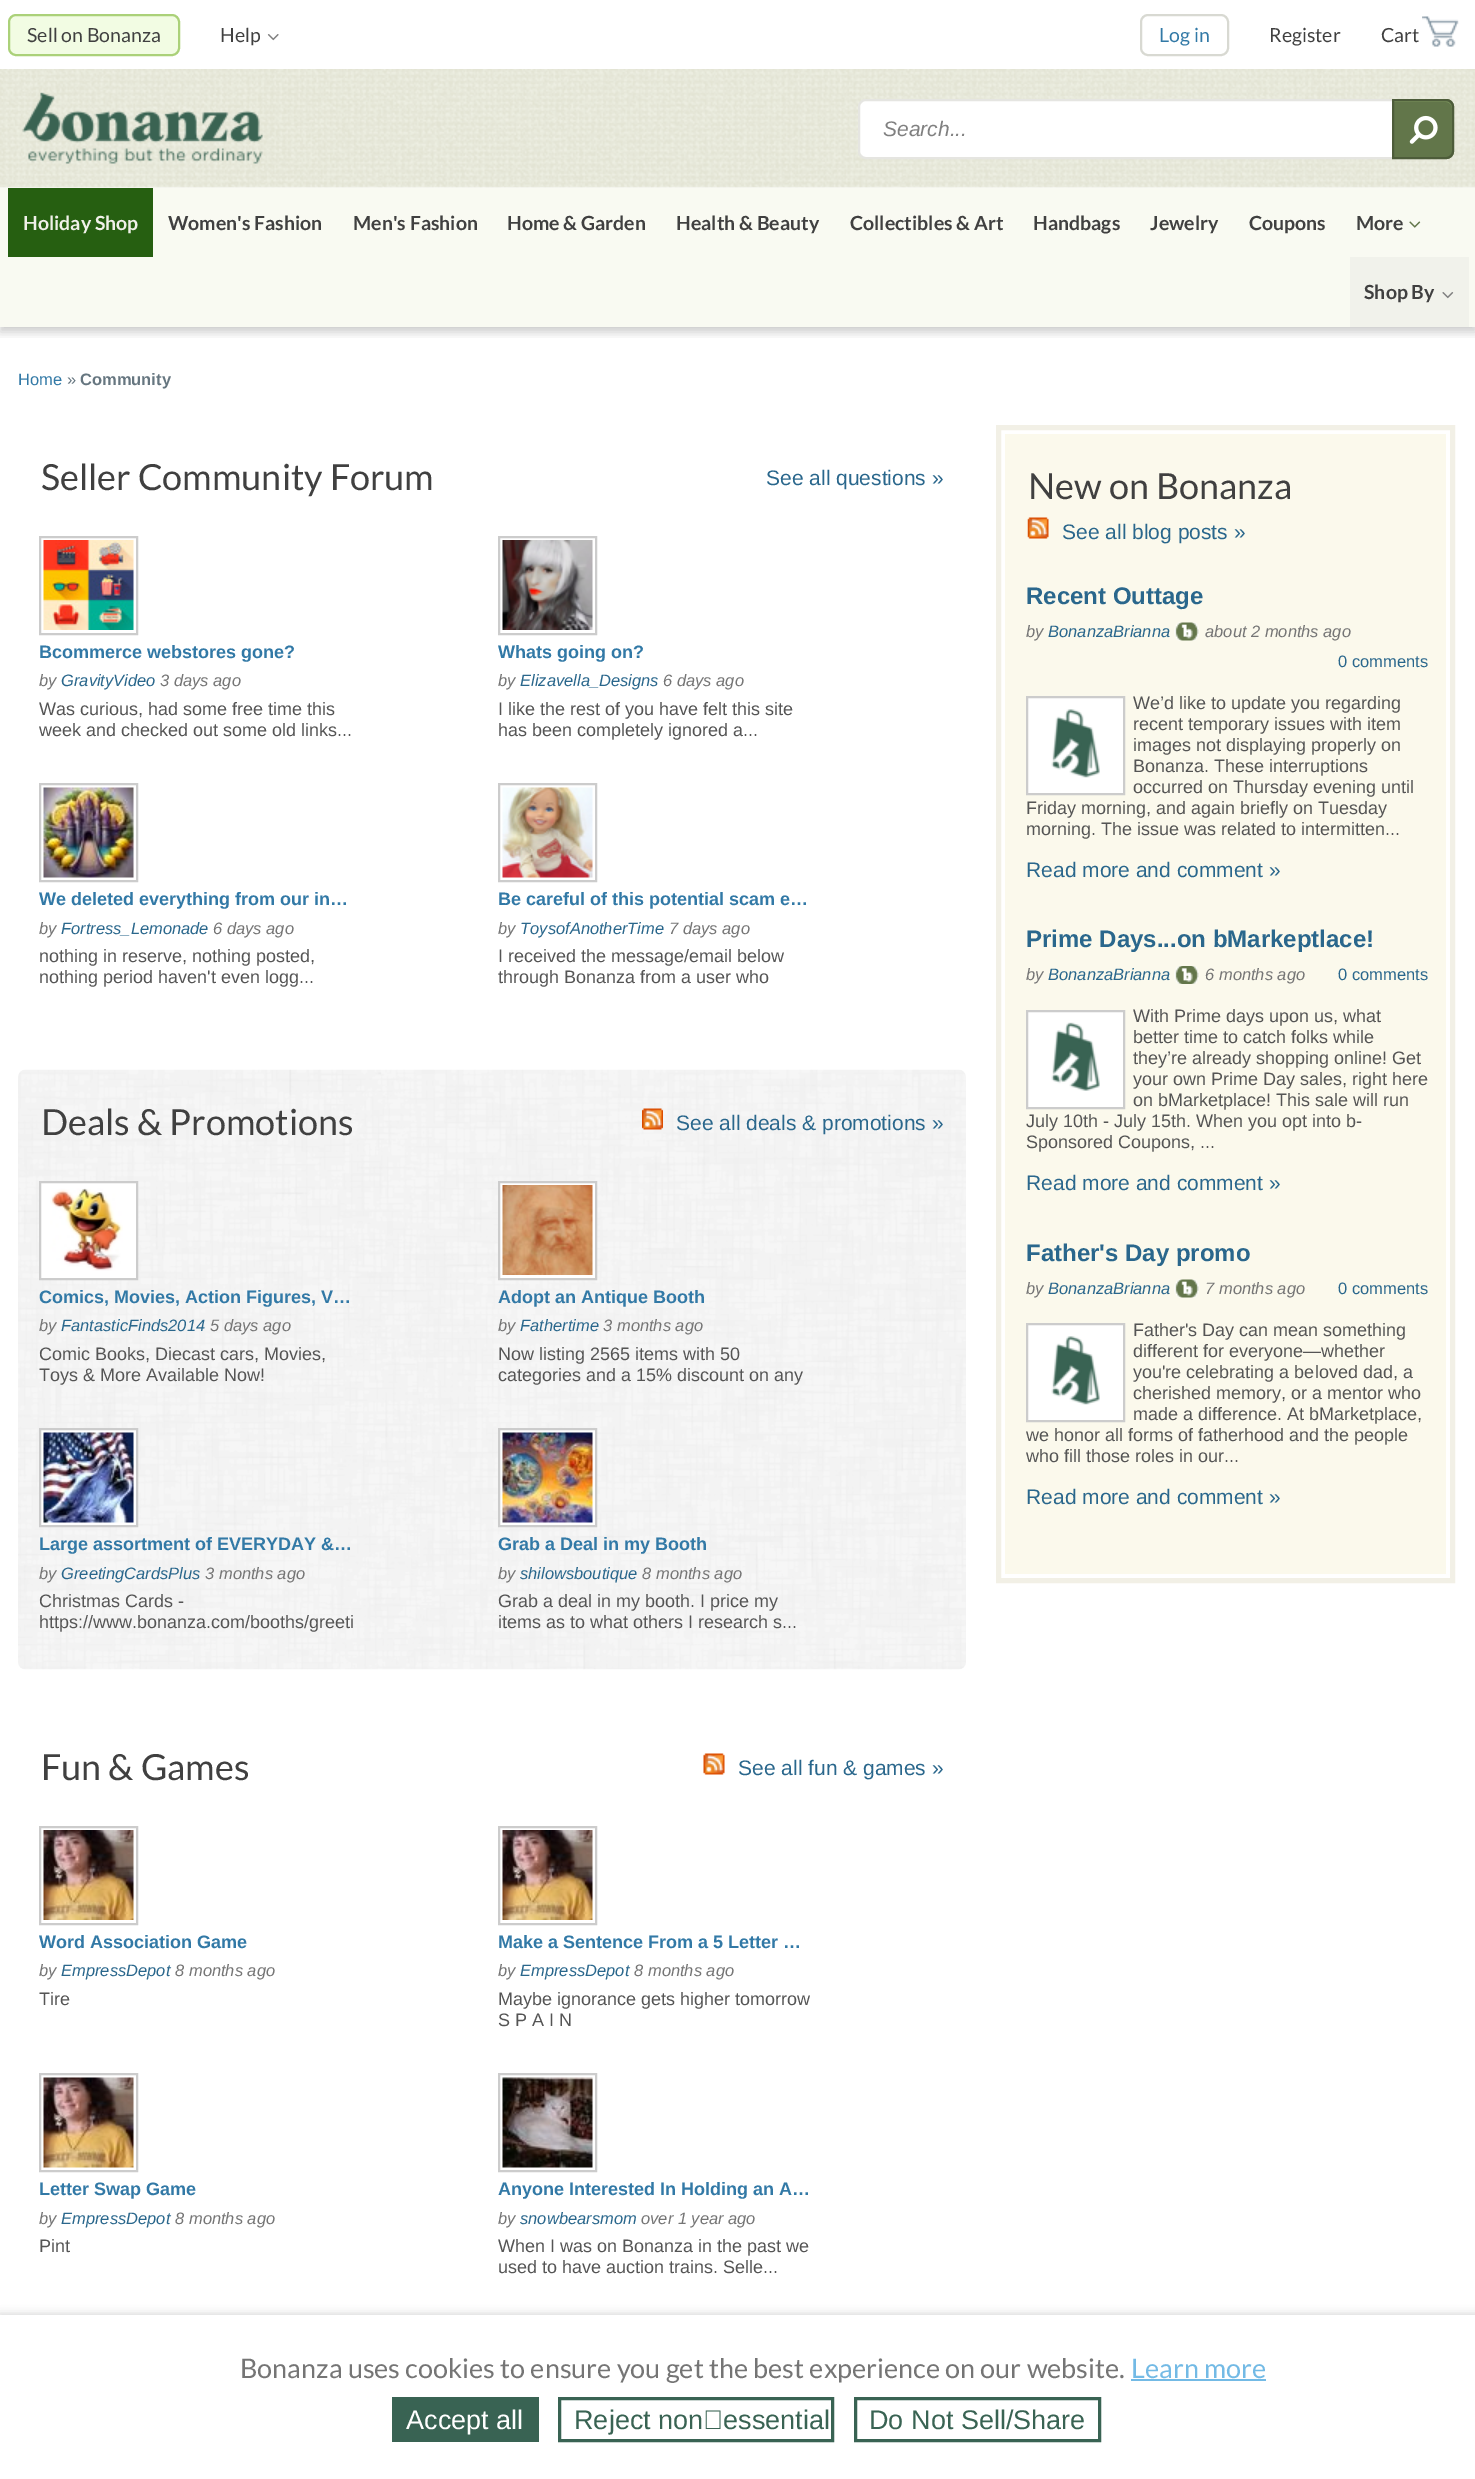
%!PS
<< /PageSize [1475 2479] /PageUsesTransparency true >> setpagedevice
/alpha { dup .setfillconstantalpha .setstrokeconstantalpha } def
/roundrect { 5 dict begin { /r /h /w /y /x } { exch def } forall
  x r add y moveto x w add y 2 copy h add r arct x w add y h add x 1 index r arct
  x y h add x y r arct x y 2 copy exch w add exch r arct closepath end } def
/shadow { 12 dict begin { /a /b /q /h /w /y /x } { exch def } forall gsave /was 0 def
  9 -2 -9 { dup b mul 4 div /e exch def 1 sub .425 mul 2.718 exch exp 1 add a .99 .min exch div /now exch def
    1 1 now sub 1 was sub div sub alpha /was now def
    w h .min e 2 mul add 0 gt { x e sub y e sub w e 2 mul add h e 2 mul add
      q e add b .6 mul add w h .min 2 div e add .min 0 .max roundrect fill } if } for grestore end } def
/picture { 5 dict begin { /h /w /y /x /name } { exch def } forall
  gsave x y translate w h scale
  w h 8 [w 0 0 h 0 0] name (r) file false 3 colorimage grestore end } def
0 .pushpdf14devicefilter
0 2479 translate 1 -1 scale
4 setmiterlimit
1 setgray
0 0 1475 2479 rectfill
gsave
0 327 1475 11 rectclip
0 setgray
0 5 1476 327 0 5 0.2 shadow
grestore
0.949 0.988 0.89 setrgbcolor
9 15 170 40 7 roundrect gsave fill grestore
0.671 0.82 0.475 setrgbcolor
2 setlinewidth
stroke
/Lato-Regular [19.5 0 0 -19.5 0 0] selectfont
0.251 setgray
27 42 moveto (Sell on Bonanza) show
220 42 moveto (Help) show
(img1.rgb) 267 34 12 7 picture
0.847 0.851 0.824 setrgbcolor
1141 15 87 40 7 roundrect stroke
0.196 0.475 0.651 setrgbcolor
1159 42 moveto (Log in) show
0.251 setgray
1269 42 moveto (Register) show
1381 42 moveto (Cart) show
(img2.rgb) 1422 16 37 31 picture
(img3.rgb) 0 69 1475 119 picture
(img4.rgb) 22 92 241 72 picture
1 setgray
newpath 866 100 moveto 1397 100 lineto 1397 158 lineto 866 158 lineto 862 158 859 155 859 151 curveto 859 107 lineto 859 103 862 100 866 100 curveto closepath gsave fill grestore
0.898 0.898 0.882 setrgbcolor
stroke
/LiberationSans-Italic [21 0 0 -21 0 0] selectfont
0.502 setgray
883 136 moveto (Search...) show
0.384 0.463 0.29 setrgbcolor
newpath 1392 99 moveto 1446 99 lineto 1450.5 99 1454 102.5 1454 107 curveto 1454 151 lineto 1454 155.5 1450.5 159 1446 159 curveto 1392 159 lineto closepath fill
0.467 0.561 0.353 setrgbcolor
newpath 1394 102 moveto 1446 102 lineto 1449 102 1452 105 1452 108 curveto 1452 107 lineto 1452 104 1449 101 1446 101 curveto 1394 101 lineto closepath fill
0.302 0.361 0.227 setrgbcolor
newpath 1393 100 moveto 1446 100 lineto 1450 100 1453 103 1453 107 curveto 1453 151 lineto 1453 155 1450 158 1446 158 curveto 1393 158 lineto closepath stroke
(img5.rgb) 1409 115 29 29 picture
0.976 0.98 0.949 setrgbcolor
0 188 1475 139 rectfill
0.149 0.373 0.067 setrgbcolor
8 188 145 69 rectfill
/Lato-Bold [19.5 0 0 -19.5 0 0] selectfont
0.941 0.945 0.914 setrgbcolor
23 230 moveto (Holiday Shop) show
0.251 setgray
168 230 moveto (Women's Fashion) show
353 230 moveto (Men's Fashion) show
507 230 moveto (Home & Garden) show
676 230 moveto (Health & Beauty) show
850 230 moveto (Collectibles & Art) show
1033 230 moveto (Handbags) show
1150 230 moveto (Jewelry) show
1249 230 moveto (Coupons) show
1356 230 moveto (More) show
(img6.rgb) 1409 221 12 7 picture
0.945 0.949 0.922 setrgbcolor
1350 257 119 70 rectfill
0.251 setgray
1364 299 moveto (Shop By) show
(img7.rgb) 1442 292 12 7 picture
/LiberationSans-Regular [16.5 0 0 -16.5 0 0] selectfont
0.196 0.475 0.651 setrgbcolor
18 385 moveto (Home) show
0.4 0.463 0.502 setrgbcolor
67 385 moveto (») show
/LiberationSans-Bold [16.5 0 0 -16.5 0 0] selectfont
80 385 moveto (Community) show
/Lato-Regular [36 0 0 -36 0 0] selectfont
0.251 setgray
41 490 moveto (Seller Community Forum) show
/LiberationSans-Regular [21 0 0 -21 0 0] selectfont
0.165 0.404 0.549 setrgbcolor
766 485 moveto (See all questions ») show
0.8 setgray
40 537 97 97 rectstroke
(img8.rgb) 43 540 91 90 picture
/LiberationSans-Bold [18 0 0 -18 0 0] selectfont
0.196 0.475 0.651 setrgbcolor
39 658 moveto (Bcommerce webstores gone?) show
/LiberationSans-Italic [16.5 0 0 -16.5 0 0] selectfont
0.459 setgray
39 686 moveto (by) show
0.165 0.404 0.549 setrgbcolor
61 686 moveto (GravityVideo) show
0.459 setgray
160 686 moveto (3 days ago) show
/LiberationSans-Regular [18 0 0 -18 0 0] selectfont
0.333 setgray
39 715 moveto (Was curious, had some free time this) show
39 736 moveto (week and checked out some old links...) show
0.8 setgray
499 537 97 97 rectstroke
(img9.rgb) 502 540 91 90 picture
/LiberationSans-Bold [18 0 0 -18 0 0] selectfont
0.196 0.475 0.651 setrgbcolor
498 658 moveto (Whats going on?) show
/LiberationSans-Italic [16.5 0 0 -16.5 0 0] selectfont
0.459 setgray
498 686 moveto (by) show
0.165 0.404 0.549 setrgbcolor
520 686 moveto (Elizavella_Designs) show
0.459 setgray
663 686 moveto (6 days ago) show
/LiberationSans-Regular [18 0 0 -18 0 0] selectfont
0.333 setgray
498 715 moveto (I like the rest of you have felt this site) show
498 736 moveto (has been completely ignored a...) show
0.8 setgray
40 784 97 97 rectstroke
(img10.rgb) 43 787 91 91 picture
/LiberationSans-Bold [18 0 0 -18 0 0] selectfont
0.196 0.475 0.651 setrgbcolor
39 905 moveto (We deleted everything from our in…) show
/LiberationSans-Italic [16.5 0 0 -16.5 0 0] selectfont
0.459 setgray
39 934 moveto (by) show
0.165 0.404 0.549 setrgbcolor
61 934 moveto (Fortress_Lemonade) show
0.459 setgray
213 934 moveto (6 days ago) show
/LiberationSans-Regular [18 0 0 -18 0 0] selectfont
0.333 setgray
39 962 moveto (nothing in reserve, nothing posted,) show
39 983 moveto (nothing period haven't even logg...) show
0.8 setgray
499 784 97 97 rectstroke
(img11.rgb) 502 787 91 91 picture
/LiberationSans-Bold [18 0 0 -18 0 0] selectfont
0.196 0.475 0.651 setrgbcolor
498 905 moveto (Be careful of this potential scam e…) show
/LiberationSans-Italic [16.5 0 0 -16.5 0 0] selectfont
0.459 setgray
498 934 moveto (by) show
0.165 0.404 0.549 setrgbcolor
520 934 moveto (ToysofAnotherTime) show
0.459 setgray
669 934 moveto (7 days ago) show
/LiberationSans-Regular [18 0 0 -18 0 0] selectfont
0.333 setgray
498 962 moveto (I received the message/email below) show
498 983 moveto (through Bonanza from a user who) show
(img12.rgb) 18 1069 948 601 picture
/Lato-Regular [36 0 0 -36 0 0] selectfont
0.251 setgray
41 1135 moveto (Deals & Promotions) show
(img13.rgb) 642 1108 21 22 picture
/LiberationSans-Regular [21 0 0 -21 0 0] selectfont
0.165 0.404 0.549 setrgbcolor
676 1130 moveto (See all deals & promotions ») show
1 setgray
newpath 40 1182 moveto 137 1182 lineto 137 1279 lineto 40 1279 lineto closepath gsave fill grestore
0.8 setgray
stroke
(img14.rgb) 50 1188 73 83 picture
/LiberationSans-Bold [18 0 0 -18 0 0] selectfont
0.196 0.475 0.651 setrgbcolor
39 1303 moveto (Comics, Movies, Action Figures, V…) show
/LiberationSans-Italic [16.5 0 0 -16.5 0 0] selectfont
0.459 setgray
39 1331 moveto (by) show
0.165 0.404 0.549 setrgbcolor
61 1331 moveto (FantasticFinds2014) show
0.459 setgray
210 1331 moveto (5 days ago) show
/LiberationSans-Regular [18 0 0 -18 0 0] selectfont
0.333 setgray
39 1360 moveto (Comic Books, Diecast cars, Movies,) show
39 1381 moveto (Toys & More Available Now!) show
1 setgray
newpath 499 1182 moveto 596 1182 lineto 596 1279 lineto 499 1279 lineto closepath gsave fill grestore
0.8 setgray
stroke
(img15.rgb) 502 1185 91 90 picture
/LiberationSans-Bold [18 0 0 -18 0 0] selectfont
0.196 0.475 0.651 setrgbcolor
498 1303 moveto (Adopt an Antique Booth) show
/LiberationSans-Italic [16.5 0 0 -16.5 0 0] selectfont
0.459 setgray
498 1331 moveto (by) show
0.165 0.404 0.549 setrgbcolor
520 1331 moveto (Fathertime) show
0.459 setgray
603 1331 moveto (3 months ago) show
/LiberationSans-Regular [18 0 0 -18 0 0] selectfont
0.333 setgray
498 1360 moveto (Now listing 2565 items with 50) show
498 1381 moveto (categories and a 15% discount on any) show
1 setgray
newpath 40 1429 moveto 137 1429 lineto 137 1526 lineto 40 1526 lineto closepath gsave fill grestore
0.8 setgray
stroke
(img16.rgb) 43 1432 91 91 picture
/LiberationSans-Bold [18 0 0 -18 0 0] selectfont
0.196 0.475 0.651 setrgbcolor
39 1550 moveto (Large assortment of EVERYDAY &…) show
/LiberationSans-Italic [16.5 0 0 -16.5 0 0] selectfont
0.459 setgray
39 1579 moveto (by) show
0.165 0.404 0.549 setrgbcolor
61 1579 moveto (GreetingCardsPlus) show
0.459 setgray
205 1579 moveto (3 months ago) show
/LiberationSans-Regular [18 0 0 -18 0 0] selectfont
0.333 setgray
39 1607 moveto (Christmas Cards -) show
39 1628 moveto (https://www.bonanza.com/booths/greeti) show
1 setgray
newpath 499 1429 moveto 596 1429 lineto 596 1526 lineto 499 1526 lineto closepath gsave fill grestore
0.8 setgray
stroke
(img17.rgb) 502 1432 91 91 picture
/LiberationSans-Bold [18 0 0 -18 0 0] selectfont
0.196 0.475 0.651 setrgbcolor
498 1550 moveto (Grab a Deal in my Booth) show
/LiberationSans-Italic [16.5 0 0 -16.5 0 0] selectfont
0.459 setgray
498 1579 moveto (by) show
0.165 0.404 0.549 setrgbcolor
520 1579 moveto (shilowsboutique) show
0.459 setgray
642 1579 moveto (8 months ago) show
/LiberationSans-Regular [18 0 0 -18 0 0] selectfont
0.333 setgray
498 1607 moveto (Grab a deal in my booth. I price my) show
498 1628 moveto (items as to what others I research s...) show
/Lato-Regular [36 0 0 -36 0 0] selectfont
0.251 setgray
41 1780 moveto (Fun & Games) show
(img18.rgb) 703 1753 22 22 picture
/LiberationSans-Regular [21 0 0 -21 0 0] selectfont
0.165 0.404 0.549 setrgbcolor
738 1775 moveto (See all fun & games ») show
0.8 setgray
40 1827 97 97 rectstroke
(img19.rgb) 43 1830 91 90 picture
/LiberationSans-Bold [18 0 0 -18 0 0] selectfont
0.196 0.475 0.651 setrgbcolor
39 1948 moveto (Word Association Game) show
/LiberationSans-Italic [16.5 0 0 -16.5 0 0] selectfont
0.459 setgray
39 1976 moveto (by) show
0.165 0.404 0.549 setrgbcolor
61 1976 moveto (EmpressDepot) show
0.459 setgray
175 1976 moveto (8 months ago) show
/LiberationSans-Regular [18 0 0 -18 0 0] selectfont
0.333 setgray
39 2005 moveto (Tire) show
0.8 setgray
499 1827 97 97 rectstroke
(img19.rgb) 502 1830 91 90 picture
/LiberationSans-Bold [18 0 0 -18 0 0] selectfont
0.196 0.475 0.651 setrgbcolor
498 1948 moveto (Make a Sentence From a 5 Letter …) show
/LiberationSans-Italic [16.5 0 0 -16.5 0 0] selectfont
0.459 setgray
498 1976 moveto (by) show
0.165 0.404 0.549 setrgbcolor
520 1976 moveto (EmpressDepot) show
0.459 setgray
634 1976 moveto (8 months ago) show
/LiberationSans-Regular [18 0 0 -18 0 0] selectfont
0.333 setgray
498 2005 moveto (Maybe ignorance gets higher tomorrow) show
498 2026 moveto (S P A I N) show
0.8 setgray
40 2074 97 97 rectstroke
(img20.rgb) 43 2077 91 91 picture
/LiberationSans-Bold [18 0 0 -18 0 0] selectfont
0.196 0.475 0.651 setrgbcolor
39 2195 moveto (Letter Swap Game) show
/LiberationSans-Italic [16.5 0 0 -16.5 0 0] selectfont
0.459 setgray
39 2224 moveto (by) show
0.165 0.404 0.549 setrgbcolor
61 2224 moveto (EmpressDepot) show
0.459 setgray
175 2224 moveto (8 months ago) show
/LiberationSans-Regular [18 0 0 -18 0 0] selectfont
0.333 setgray
39 2252 moveto (Pint) show
0.8 setgray
499 2074 97 97 rectstroke
(img21.rgb) 502 2077 91 91 picture
/LiberationSans-Bold [18 0 0 -18 0 0] selectfont
0.196 0.475 0.651 setrgbcolor
498 2195 moveto (Anyone Interested In Holding an A…) show
/LiberationSans-Italic [16.5 0 0 -16.5 0 0] selectfont
0.459 setgray
498 2224 moveto (by) show
0.165 0.404 0.549 setrgbcolor
520 2224 moveto (snowbearsmom) show
0.459 setgray
641 2224 moveto (over 1 year ago) show
/LiberationSans-Regular [18 0 0 -18 0 0] selectfont
0.333 setgray
498 2252 moveto (When I was on Bonanza in the past we) show
498 2273 moveto (used to have auction trains. Selle...) show
0.949 0.941 0.902 setrgbcolor
5 setlinewidth
998.5 427.5 454 1153 rectstroke
0.984 0.976 0.925 setrgbcolor
1005 434 441 1140 rectfill
/Lato-Regular [36 0 0 -36 0 0] selectfont
0.251 setgray
1028 499 moveto (New on Bonanza) show
(img22.rgb) 1027 517 22 22 picture
/LiberationSans-Regular [21 0 0 -21 0 0] selectfont
0.165 0.404 0.549 setrgbcolor
1062 539 moveto (See all blog posts ») show
/LiberationSans-Bold [24 0 0 -24 0 0] selectfont
1026 604 moveto (Recent Outtage) show
/LiberationSans-Italic [16.5 0 0 -16.5 0 0] selectfont
0.459 setgray
1026 637 moveto (by) show
0.165 0.404 0.549 setrgbcolor
1048 637 moveto (BonanzaBrianna) show
(img23.rgb) 1174 622 26 19 picture
0.459 setgray
1205 637 moveto (about 2 months ago) show
/LiberationSans-Regular [16.5 0 0 -16.5 0 0] selectfont
0.165 0.404 0.549 setrgbcolor
1338 667 moveto (0 comments) show
1 setgray
newpath 1027 697 moveto 1124 697 lineto 1124 794 lineto 1027 794 lineto closepath gsave fill grestore
0.8 setgray
2 setlinewidth
stroke
(img24.rgb) 1051 709 49 69 picture
/LiberationSans-Regular [18 0 0 -18 0 0] selectfont
0.333 setgray
1133 709 moveto (We’d like to update you regarding) show
1133 730 moveto (recent temporary issues with item) show
1133 751 moveto (images not displaying properly on) show
1133 772 moveto (Bonanza. These interruptions) show
1133 793 moveto (occurred on Thursday evening until) show
1026 814 moveto (Friday morning, and again briefly on Tuesday) show
1026 835 moveto (morning. The issue was related to intermitten...) show
/LiberationSans-Regular [21 0 0 -21 0 0] selectfont
0.165 0.404 0.549 setrgbcolor
1026 877 moveto (Read more and comment ») show
/LiberationSans-Bold [24 0 0 -24 0 0] selectfont
1026 947 moveto (Prime Days...on bMarkeptlace!) show
/LiberationSans-Italic [16.5 0 0 -16.5 0 0] selectfont
0.459 setgray
1026 980 moveto (by) show
0.165 0.404 0.549 setrgbcolor
1048 980 moveto (BonanzaBrianna) show
(img25.rgb) 1174 966 26 18 picture
0.459 setgray
1205 980 moveto (6 months ago) show
/LiberationSans-Regular [16.5 0 0 -16.5 0 0] selectfont
0.165 0.404 0.549 setrgbcolor
1338 980 moveto (0 comments) show
1 setgray
newpath 1027 1011 moveto 1124 1011 lineto 1124 1108 lineto 1027 1108 lineto closepath gsave fill grestore
0.8 setgray
stroke
(img26.rgb) 1051 1022 49 69 picture
/LiberationSans-Regular [18 0 0 -18 0 0] selectfont
0.333 setgray
1133 1022 moveto (With Prime days upon us, what) show
1133 1043 moveto (better time to catch folks while) show
1133 1064 moveto (they’re already shopping online! Get) show
1133 1085 moveto (your own Prime Day sales, right here) show
1133 1106 moveto (on bMarketplace! This sale will run) show
1026 1127 moveto (July 10th - July 15th. When you opt into b-) show
1026 1148 moveto (Sponsored Coupons, ...) show
/LiberationSans-Regular [21 0 0 -21 0 0] selectfont
0.165 0.404 0.549 setrgbcolor
1026 1190 moveto (Read more and comment ») show
/LiberationSans-Bold [24 0 0 -24 0 0] selectfont
1026 1261 moveto (Father's Day promo) show
/LiberationSans-Italic [16.5 0 0 -16.5 0 0] selectfont
0.459 setgray
1026 1294 moveto (by) show
0.165 0.404 0.549 setrgbcolor
1048 1294 moveto (BonanzaBrianna) show
(img23.rgb) 1174 1279 26 19 picture
0.459 setgray
1205 1294 moveto (7 months ago) show
/LiberationSans-Regular [16.5 0 0 -16.5 0 0] selectfont
0.165 0.404 0.549 setrgbcolor
1338 1294 moveto (0 comments) show
1 setgray
newpath 1027 1324 moveto 1124 1324 lineto 1124 1421 lineto 1027 1421 lineto closepath gsave fill grestore
0.8 setgray
stroke
(img24.rgb) 1051 1336 49 69 picture
/LiberationSans-Regular [18 0 0 -18 0 0] selectfont
0.333 setgray
1133 1336 moveto (Father's Day can mean something) show
1133 1357 moveto (different for everyone—whether) show
1133 1378 moveto (you're celebrating a beloved dad, a) show
1133 1399 moveto (cherished memory, or a mentor who) show
1133 1420 moveto (made a difference. At bMarketplace,) show
1026 1441 moveto (we honor all forms of fatherhood and the people) show
1026 1462 moveto (who fill those roles in our...) show
/LiberationSans-Regular [21 0 0 -21 0 0] selectfont
0.165 0.404 0.549 setrgbcolor
1026 1504 moveto (Read more and comment ») show
0 setgray
0 2316 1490 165 0 5 0.25 shadow
1 setgray
0 2315 1475 164 rectfill
/Lato-Regular [27 0 0 -27 0 0] selectfont
0.459 setgray
240 2378 moveto (Bonanza uses cookies to ensure you get the best experience on our website.) show
0.451 0.729 0.898 setrgbcolor
1131 2378 moveto (Learn more) show
1131 2379 135 2 rectfill
0.224 0.388 0.325 setrgbcolor
392 2397 147 45 rectfill
/LiberationSans-Regular [27 0 0 -27 0 0] selectfont
1 setgray
406 2429 moveto (Accept all) show
0.224 0.388 0.325 setrgbcolor
3 setlinewidth
559.5 2398.5 273 42 rectstroke
574 2429 moveto (Reject non‑essential) show
855.5 2398.5 244 42 rectstroke
869 2429 moveto (Do Not Sell/Share) show
.poppdf14devicefilter showpage
